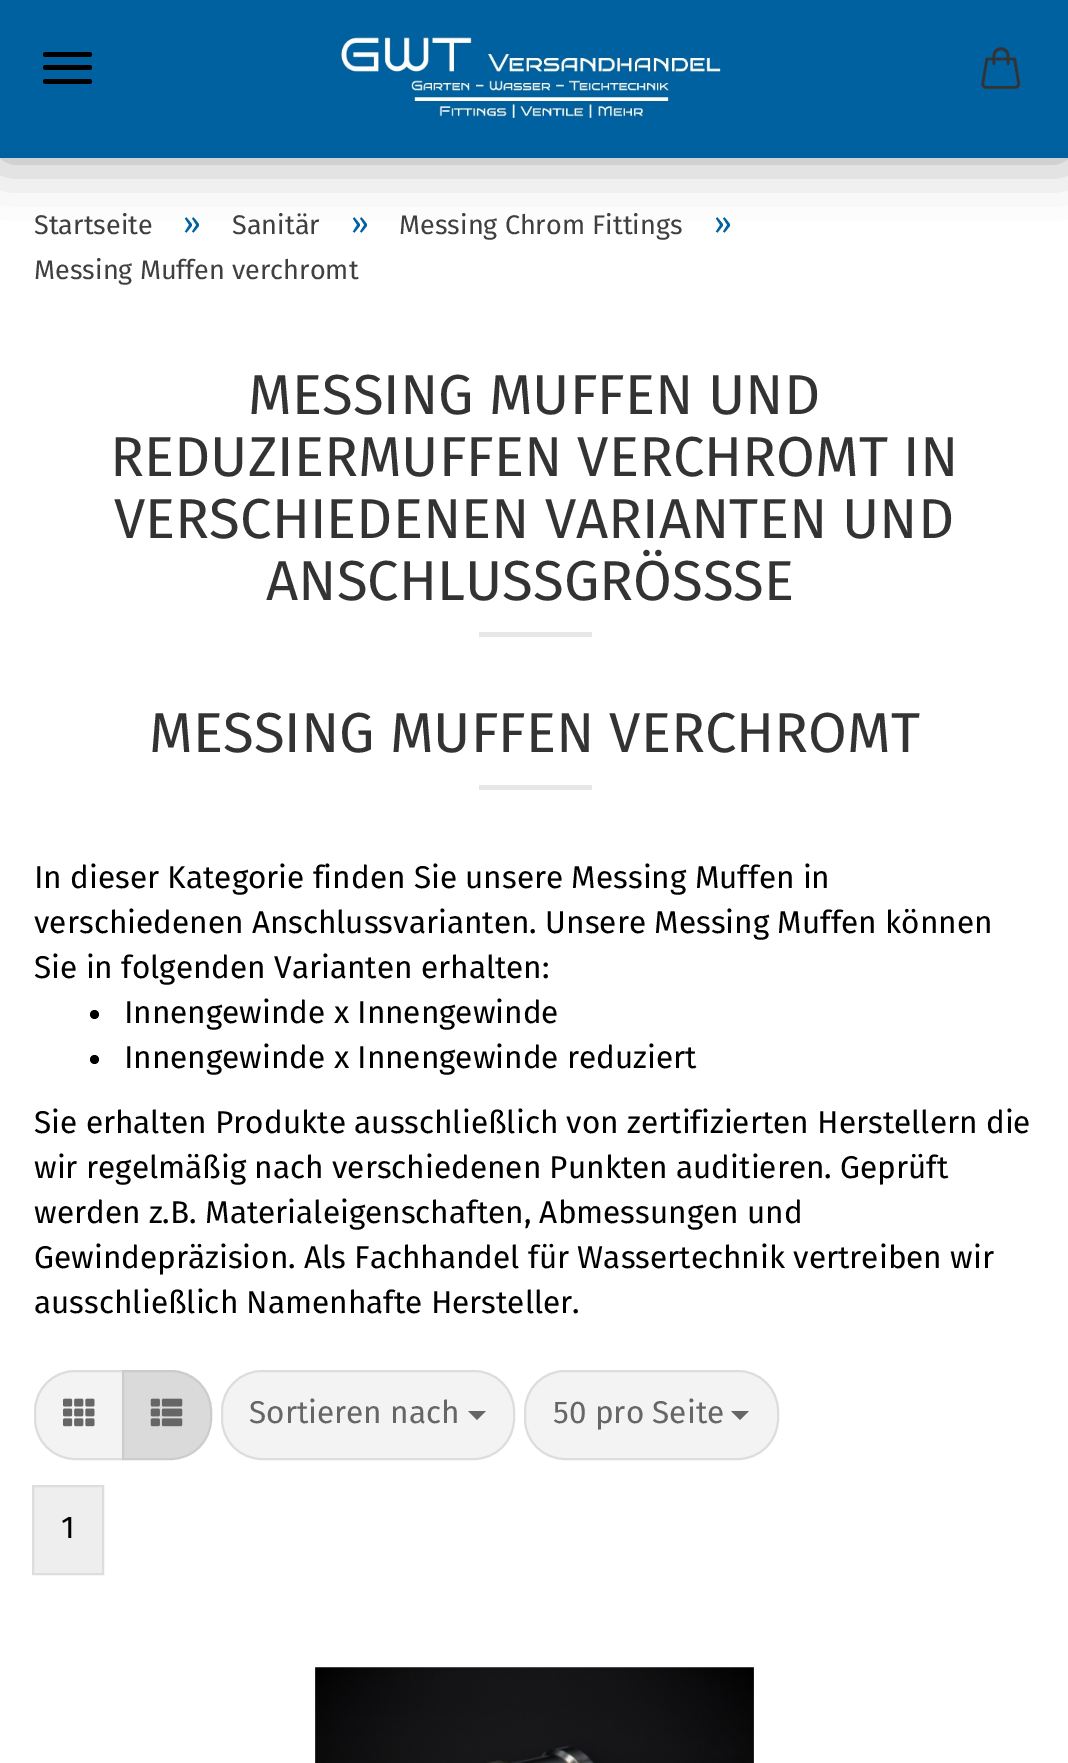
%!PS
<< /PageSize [1068 1763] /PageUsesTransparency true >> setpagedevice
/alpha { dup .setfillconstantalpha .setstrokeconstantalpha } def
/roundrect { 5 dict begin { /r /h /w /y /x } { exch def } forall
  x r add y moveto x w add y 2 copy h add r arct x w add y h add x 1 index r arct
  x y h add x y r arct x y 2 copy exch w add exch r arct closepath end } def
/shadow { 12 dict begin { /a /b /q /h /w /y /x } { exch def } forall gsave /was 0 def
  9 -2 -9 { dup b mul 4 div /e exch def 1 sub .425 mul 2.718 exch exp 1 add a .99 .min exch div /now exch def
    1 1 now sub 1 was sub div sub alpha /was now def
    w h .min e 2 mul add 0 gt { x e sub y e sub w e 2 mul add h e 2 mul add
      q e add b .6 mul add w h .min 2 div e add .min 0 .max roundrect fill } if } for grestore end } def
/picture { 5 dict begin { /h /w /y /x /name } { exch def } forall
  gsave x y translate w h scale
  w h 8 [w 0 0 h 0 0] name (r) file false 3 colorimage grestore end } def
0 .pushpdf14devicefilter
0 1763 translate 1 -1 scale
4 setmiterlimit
1 setgray
0 0 1068 1763 rectfill
0 setgray
0 0 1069 158 0 28 0.35 shadow
0 0.38 0.627 setrgbcolor
0 0 1068 158 rectfill
(img1.rgb) 340 36 381 85 picture
(img2.rgb) 981 47 40 42 picture
0 setgray
43 65 49 5 2.5 roundrect fill
43 52 49 5 2.5 roundrect fill
43 79 49 5 2.5 roundrect fill
/FiraSans-Regular [27 0 0 -27 0 0] selectfont
0.251 setgray
34 234 moveto (Startseite) show
/FiraSans-Regular [31.5 0 0 -31.5 0 0] selectfont
0 0.38 0.627 setrgbcolor
183 234 moveto (») show
/FiraSans-Regular [27 0 0 -27 0 0] selectfont
0.251 setgray
232 234 moveto (Sanitär) show
/FiraSans-Regular [31.5 0 0 -31.5 0 0] selectfont
0 0.38 0.627 setrgbcolor
351 234 moveto (») show
/FiraSans-Regular [27 0 0 -27 0 0] selectfont
0.251 setgray
399 234 moveto (Messing Chrom Fittings) show
/FiraSans-Regular [31.5 0 0 -31.5 0 0] selectfont
0 0.38 0.627 setrgbcolor
714 234 moveto (») show
/FiraSans-Regular [27 0 0 -27 0 0] selectfont
0.251 setgray
34 279 moveto (Messing Muffen verchromt) show
/FiraSans-Regular [56.25 0 0 -56.25 0 0] selectfont
0.2 setgray
248 414 moveto (MESSING MUFFEN UND) show
110 476 moveto (REDUZIERMUFFEN VERCHROMT IN) show
114 538 moveto (VERSCHIEDENEN VARIANTEN UND) show
266 600 moveto (ANSCHLUSSGRÖSSSE) show
0.906 setgray
479 632 113 5 rectfill
0.2 setgray
149 752 moveto (MESSING MUFFEN VERCHROMT) show
0.906 setgray
479 785 113 5 rectfill
/FiraSans-Regular [31.5 0 0 -31.5 0 0] selectfont
0 setgray
34 888 moveto (In dieser Kategorie finden Sie unsere Messing Muffen in) show
34 933 moveto (verschiedenen Anschlussvarianten. Unsere Messing Muffen können) show
34 978 moveto (Sie in folgenden Varianten erhalten:) show
newpath 94.5 1014.5 4.5 0 360 arc closepath fill
124 1023 moveto (Innengewinde x Innengewinde) show
newpath 94.5 1059.5 4.5 0 360 arc closepath fill
124 1068 moveto (Innengewinde x Innengewinde reduziert) show
34 1133 moveto (Sie erhalten Produkte ausschließlich von zertifizierten Herstellern die) show
34 1178 moveto (wir regelmäßig nach verschiedenen Punkten auditieren. Geprüft) show
34 1223 moveto (werden z.B. Materialeigenschaften, Abmessungen und) show
34 1268 moveto (Gewindepräzision. Als Fachhandel für Wassertechnik vertreiben wir) show
34 1313 moveto (ausschließlich Namenhafte Hersteller.) show
0.953 setgray
newpath 75 1371 moveto 123 1371 lineto 123 1459 lineto 75 1459 lineto 53 1459 35 1441 35 1419 curveto 35 1411 lineto 35 1389 53 1371 75 1371 curveto closepath gsave fill grestore
0.867 setgray
2 setlinewidth
stroke
(img3.rgb) 63 1398 32 29 picture
0.855 setgray
newpath 123 1371 moveto 171 1371 lineto 193 1371 211 1389 211 1411 curveto 211 1419 lineto 211 1441 193 1459 171 1459 curveto 123 1459 lineto closepath gsave fill grestore
0.8 setgray
stroke
(img4.rgb) 150 1398 33 29 picture
0.953 setgray
222 1371 292 88 40 roundrect gsave fill grestore
0.867 setgray
stroke
0.4 setgray
249 1423 moveto (Sortieren nach) show
newpath 468 1411 moveto 486 1411 lineto 477 1420 lineto closepath fill
0.953 setgray
525 1371 253 88 40 roundrect gsave fill grestore
0.867 setgray
stroke
0.4 setgray
553 1423 moveto (50 pro Seite) show
newpath 731 1411 moveto 749 1411 lineto 740 1420 lineto closepath fill
0.933 setgray
newpath 33 1486 moveto 103 1486 lineto 103 1574 lineto 33 1574 lineto closepath gsave fill grestore
0.867 setgray
stroke
0 setgray
61 1538 moveto (1) show
(img5.rgb) 315 1667 439 96 picture
.poppdf14devicefilter showpage
